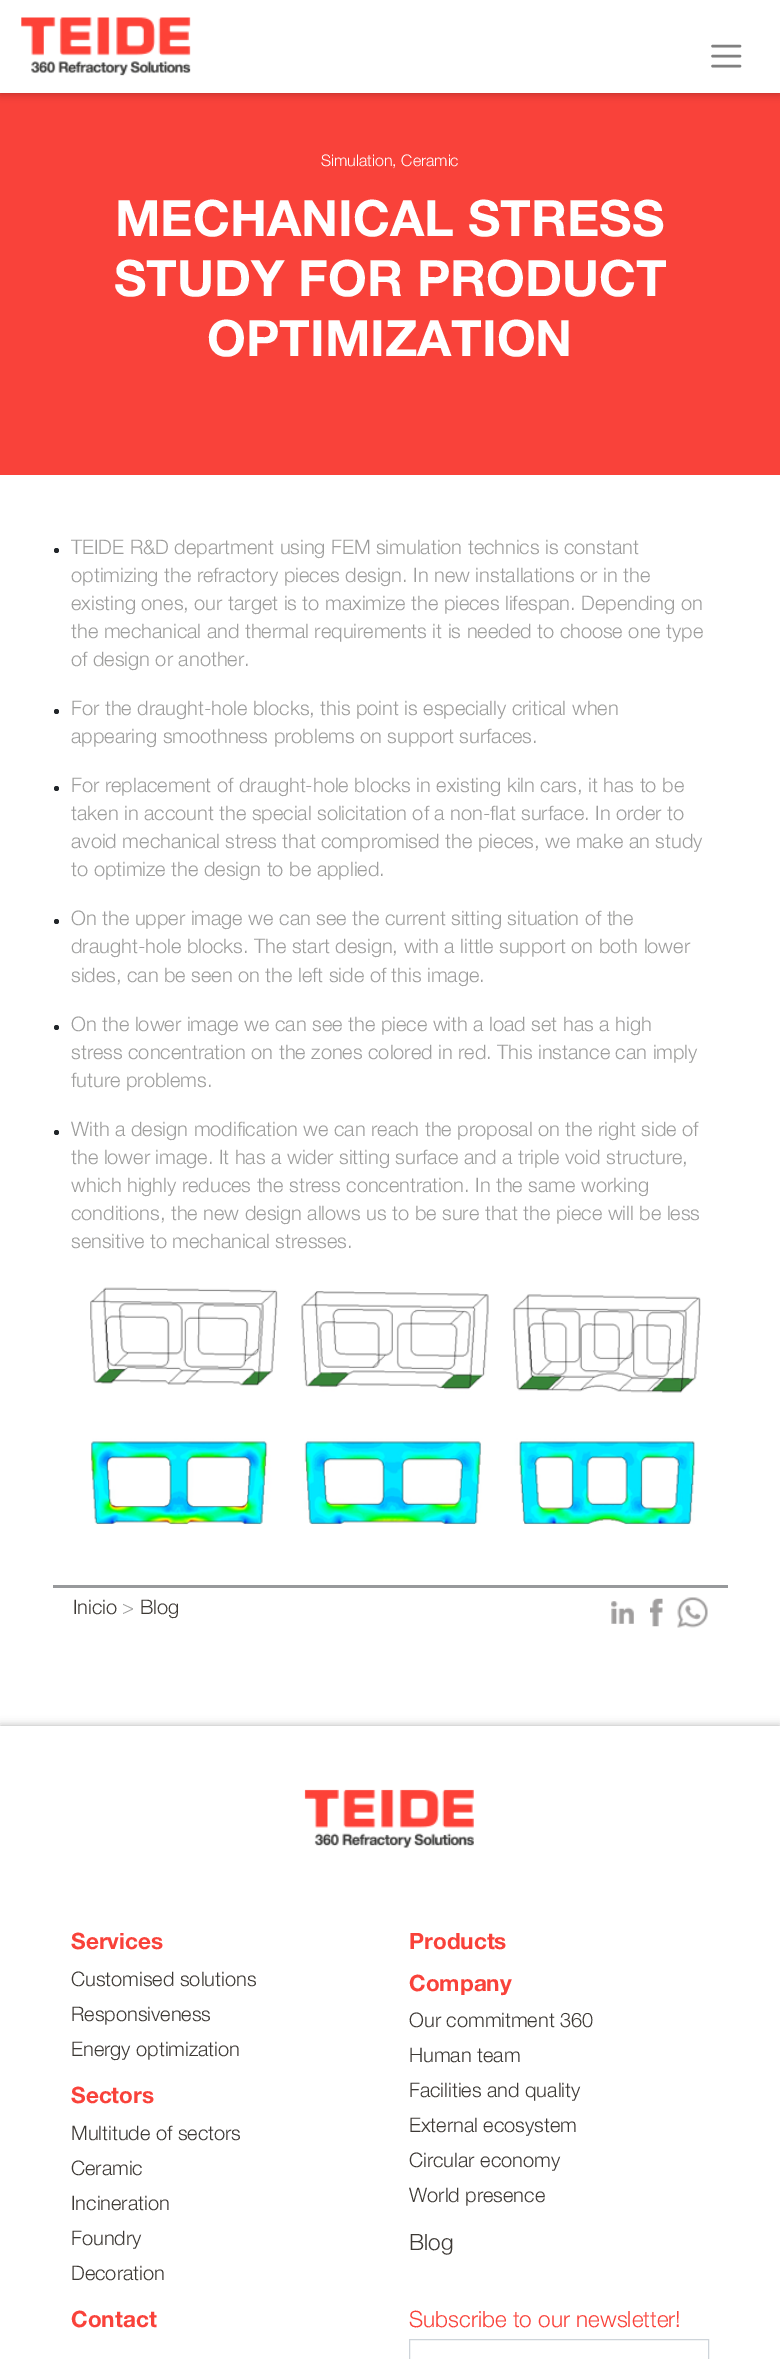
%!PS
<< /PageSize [780 2359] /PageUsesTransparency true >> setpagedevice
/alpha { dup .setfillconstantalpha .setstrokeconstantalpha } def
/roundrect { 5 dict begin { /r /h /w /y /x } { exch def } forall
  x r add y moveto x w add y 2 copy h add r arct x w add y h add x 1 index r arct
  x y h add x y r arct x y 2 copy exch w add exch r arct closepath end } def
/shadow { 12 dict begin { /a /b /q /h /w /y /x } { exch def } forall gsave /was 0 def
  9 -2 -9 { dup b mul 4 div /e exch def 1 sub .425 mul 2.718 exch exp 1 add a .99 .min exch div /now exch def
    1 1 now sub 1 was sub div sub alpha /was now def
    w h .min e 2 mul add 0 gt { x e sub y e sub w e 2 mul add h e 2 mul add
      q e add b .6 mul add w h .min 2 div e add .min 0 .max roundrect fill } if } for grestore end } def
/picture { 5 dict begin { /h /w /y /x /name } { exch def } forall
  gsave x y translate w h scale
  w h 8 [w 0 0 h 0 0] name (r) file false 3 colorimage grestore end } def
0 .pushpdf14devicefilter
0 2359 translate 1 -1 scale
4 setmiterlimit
1 setgray
0 0 780 2359 rectfill
0.976 0.259 0.227 setrgbcolor
0 93 780 382 rectfill
0 setgray
0 0 780 93 0 4.5 0.3 shadow
1 setgray
0 0 780 93 rectfill
(img1.rgb) 21 17 170 59 picture
0.502 setgray
2.5 setlinewidth
1 setlinecap
newpath 712.5 46 moveto 740 46 lineto 712.5 56 moveto 740 56 lineto 712.5 66 moveto 740 66 lineto stroke
/HelveticaNeue-Light [16 0 0 -16 0 0] selectfont
1 setgray
321 166 moveto (Simulation, Ceramic) show
/HelveticaNeue-Bold [50 0 0 -50 0 0] selectfont
115 236 moveto (MECHANICAL STRESS) show
114 296 moveto (STUDY FOR PRODUCT) show
207 356 moveto (OPTIMIZATION) show
0.592 0.6 0.608 setrgbcolor
53 1585 675 3 rectfill
0.129 0.145 0.161 setrgbcolor
newpath 56.5 550.5 2.5 0 360 arc closepath fill
/HelveticaNeue-Light [20 0 0 -20 0 0] selectfont
0.616 0.616 0.612 setrgbcolor
71 554 moveto (TEIDE R&D department using FEM simulation technics is constant) show
71 582 moveto (optimizing the refractory pieces design. In new installations or in the) show
71 610 moveto (existing ones, our target is to maximize the pieces lifespan. Depending on) show
71 638 moveto (the mechanical and thermal requirements it is needed to choose one type) show
71 666 moveto (of design or another.) show
0.129 0.145 0.161 setrgbcolor
newpath 56.5 711.5 2.5 0 360 arc closepath fill
0.616 0.616 0.612 setrgbcolor
71 715 moveto (For the draught-hole blocks, this point is especially critical when) show
71 743 moveto (appearing smoothness problems on support surfaces.) show
0.129 0.145 0.161 setrgbcolor
newpath 56.5 788.5 2.5 0 360 arc closepath fill
0.616 0.616 0.612 setrgbcolor
71 792 moveto (For replacement of draught-hole blocks in existing kiln cars, it has to be) show
71 820 moveto (taken in account the special solicitation of a non-flat surface. In order to) show
71 848 moveto (avoid mechanical stress that compromised the pieces, we make an study) show
71 876 moveto (to optimize the design to be applied.) show
0.129 0.145 0.161 setrgbcolor
newpath 56.5 921.5 2.5 0 360 arc closepath fill
0.616 0.616 0.612 setrgbcolor
71 925 moveto (On the upper image we can see the current sitting situation of the) show
71 953 moveto (draught-hole blocks. The start design, with a little support on both lower) show
71 982 moveto (sides, can be seen on the left side of this image.) show
0.129 0.145 0.161 setrgbcolor
newpath 56.5 1027.5 2.5 0 360 arc closepath fill
0.616 0.616 0.612 setrgbcolor
71 1031 moveto (On the lower image we can see the piece with a load set has a high) show
71 1059 moveto (stress concentration on the zones colored in red. This instance can imply) show
71 1087 moveto (future problems.) show
0.129 0.145 0.161 setrgbcolor
newpath 56.5 1132.5 2.5 0 360 arc closepath fill
0.616 0.616 0.612 setrgbcolor
71 1136 moveto (With a design modification we can reach the proposal on the right side of) show
71 1164 moveto (the lower image. It has a wider sitting surface and a triple void structure,) show
71 1192 moveto (which highly reduces the stress concentration. In the same working) show
71 1220 moveto (conditions, the new design allows us to be sure that the piece will be less) show
71 1248 moveto (sensitive to mechanical stresses.) show
(img2.rgb) 90 1287 611 238 picture
0.239 0.224 0.208 setrgbcolor
73 1614 moveto (Inicio) show
0.616 0.616 0.612 setrgbcolor
122 1614 moveto (>) show
0.239 0.224 0.208 setrgbcolor
140 1614 moveto (Blog) show
(img3.rgb) 611 1601 23 23 picture
(img4.rgb) 650 1598 13 29 picture
(img5.rgb) 677 1597 31 31 picture
gsave
newpath 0 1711 moveto 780 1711 lineto 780 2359 lineto 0 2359 lineto closepath 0 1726 moveto 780 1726 lineto 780 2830 lineto 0 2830 lineto closepath eoclip newpath
0 setgray
0 1726 780 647 0 4.5 0.3 shadow
grestore
(img6.rgb) 304 1789 170 59 picture
/HelveticaNeue-Bold [22.5 0 0 -22.5 0 0] selectfont
0.976 0.259 0.227 setrgbcolor
71 1949 moveto (Services) show
/HelveticaNeue-Light [20 0 0 -20 0 0] selectfont
0.239 0.224 0.208 setrgbcolor
71 1986 moveto (Customised solutions) show
71 2021 moveto (Responsiveness) show
71 2056 moveto (Energy optimization) show
/HelveticaNeue-Bold [22.5 0 0 -22.5 0 0] selectfont
0.976 0.259 0.227 setrgbcolor
71 2103 moveto (Sectors) show
/HelveticaNeue-Light [20 0 0 -20 0 0] selectfont
0.239 0.224 0.208 setrgbcolor
71 2140 moveto (Multitude of sectors) show
71 2175 moveto (Ceramic) show
71 2210 moveto (Incineration) show
71 2245 moveto (Foundry) show
71 2280 moveto (Decoration) show
/HelveticaNeue-Bold [22.5 0 0 -22.5 0 0] selectfont
0.976 0.259 0.227 setrgbcolor
409 1949 moveto (Products) show
409 1991 moveto (Company) show
/HelveticaNeue-Light [20 0 0 -20 0 0] selectfont
0.239 0.224 0.208 setrgbcolor
409 2027 moveto (Our commitment 360) show
409 2062 moveto (Human team) show
409 2097 moveto (Facilities and quality) show
409 2132 moveto (External ecosystem) show
409 2167 moveto (Circular economy) show
409 2202 moveto (World presence) show
/HelveticaNeue-Light [22.5 0 0 -22.5 0 0] selectfont
409 2250 moveto (Blog) show
/HelveticaNeue-Bold [22.5 0 0 -22.5 0 0] selectfont
0.976 0.259 0.227 setrgbcolor
71 2327 moveto (Contact) show
/HelveticaNeue-Light [22.5 0 0 -22.5 0 0] selectfont
409 2327 moveto (Subscribe to our newsletter!) show
0.808 0.831 0.855 setrgbcolor
1 setlinewidth
0 setlinecap
409.5 2339.5 299 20 rectstroke
.poppdf14devicefilter showpage
